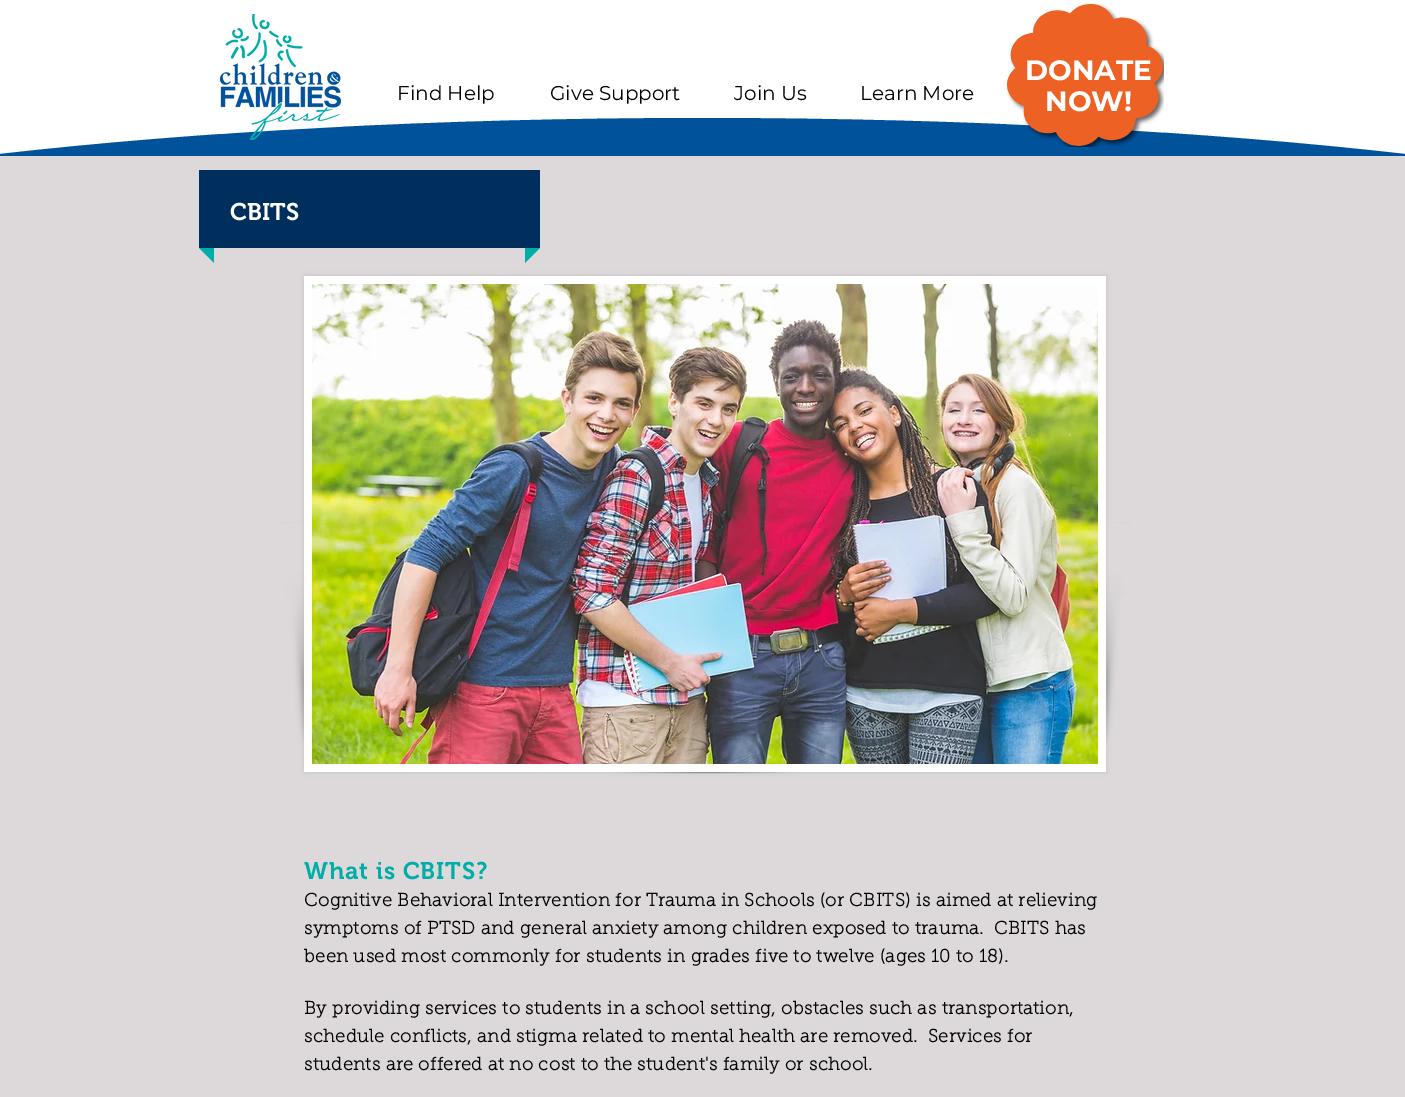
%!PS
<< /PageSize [1405 1097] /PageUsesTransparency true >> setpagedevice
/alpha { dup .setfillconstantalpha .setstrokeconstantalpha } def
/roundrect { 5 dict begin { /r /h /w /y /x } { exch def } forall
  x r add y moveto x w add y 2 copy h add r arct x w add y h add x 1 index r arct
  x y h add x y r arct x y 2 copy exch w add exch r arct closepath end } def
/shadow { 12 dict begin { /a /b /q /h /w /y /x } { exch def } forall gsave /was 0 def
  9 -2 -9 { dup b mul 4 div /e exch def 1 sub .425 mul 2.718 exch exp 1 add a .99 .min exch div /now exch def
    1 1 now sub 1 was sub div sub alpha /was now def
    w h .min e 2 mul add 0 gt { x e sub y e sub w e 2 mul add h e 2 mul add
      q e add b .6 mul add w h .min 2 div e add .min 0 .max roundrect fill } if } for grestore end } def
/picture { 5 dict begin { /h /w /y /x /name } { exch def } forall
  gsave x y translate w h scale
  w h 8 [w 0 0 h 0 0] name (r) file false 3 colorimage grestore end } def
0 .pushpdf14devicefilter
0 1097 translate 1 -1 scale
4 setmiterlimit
0.867 0.851 0.855 setrgbcolor
0 0 1405 1097 rectfill
1 setgray
0 0 1405 154 rectfill
0 0.322 0.608 setrgbcolor
newpath 1405 154 moveto 1212 132 968 118 702 118 curveto 437 118 192 132 0 154 curveto 0 156 lineto 1405 156 lineto closepath fill
(img1.rgb) 220 14 121 126 picture
/Montserrat-Regular [20 0 0 -20 0 0] selectfont
0 setgray
397 100 moveto (Find Help) show
550 100 moveto (Give Support) show
734 100 moveto (Join Us) show
860 100 moveto (Learn More) show
(img2.rgb) 1006 3 158 144 picture
/Montserrat-Bold [28 0 0 -28 0 0] selectfont
1 setgray
1025 80 moveto (DONATE) show
1045 111 moveto (NOW!) show
0 0.18 0.365 setrgbcolor
199 170 341 78 rectfill
/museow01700-SemiBold [24 0 0 -24 0 0] selectfont
1 setgray
230 220 moveto (CBITS) show
0 0.678 0.659 setrgbcolor
newpath 199 248 moveto 214 248 lineto 214 263 lineto closepath fill
newpath 525 248 moveto 540 248 lineto 525 263 lineto closepath fill
0 setgray
304 276 802 496 0 2.5 0.1 shadow
(img3.rgb) 280 522 24 220 picture
1 setgray
304 276 802 496 rectfill
(img4.rgb) 312 284 786 480 picture
(img5.rgb) 611 772 188 2 picture
(img6.rgb) 1106 522 24 220 picture
0 0.678 0.659 setrgbcolor
304 879 moveto 0.75 0 (What is CBITS?) ashow
/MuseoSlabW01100-Bold [18 0 0 -18 0 0] selectfont
0 setgray
304 906 moveto 0.55 0 (Cognitive Behavioral Intervention for Trauma in Schools \(or CBITS\) is aimed at relieving) ashow
304 934 moveto 0.55 0 (symptoms of PTSD and general anxiety among children exposed to trauma.  CBITS has) ashow
304 962 moveto 0.55 0 (been used most commonly for students in grades five to twelve \(ages 10 to 18\).) ashow
304 1014 moveto 0.55 0 (By providing services to students in a school setting, obstacles such as transportation,) ashow
304 1042 moveto 0.55 0 (schedule conflicts, and stigma related to mental health are removed.  Services for) ashow
304 1070 moveto 0.55 0 (students are offered at no cost to the student's family or school.) ashow
.poppdf14devicefilter showpage
